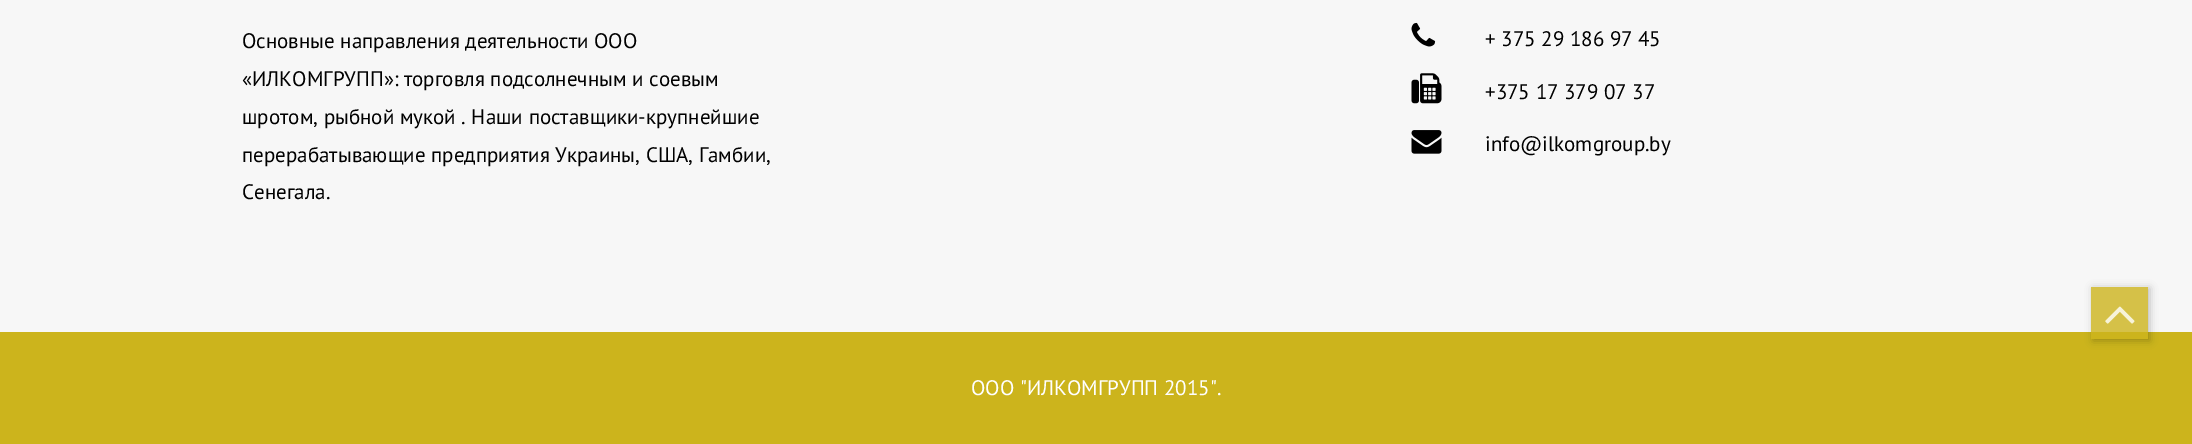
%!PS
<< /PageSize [2192 444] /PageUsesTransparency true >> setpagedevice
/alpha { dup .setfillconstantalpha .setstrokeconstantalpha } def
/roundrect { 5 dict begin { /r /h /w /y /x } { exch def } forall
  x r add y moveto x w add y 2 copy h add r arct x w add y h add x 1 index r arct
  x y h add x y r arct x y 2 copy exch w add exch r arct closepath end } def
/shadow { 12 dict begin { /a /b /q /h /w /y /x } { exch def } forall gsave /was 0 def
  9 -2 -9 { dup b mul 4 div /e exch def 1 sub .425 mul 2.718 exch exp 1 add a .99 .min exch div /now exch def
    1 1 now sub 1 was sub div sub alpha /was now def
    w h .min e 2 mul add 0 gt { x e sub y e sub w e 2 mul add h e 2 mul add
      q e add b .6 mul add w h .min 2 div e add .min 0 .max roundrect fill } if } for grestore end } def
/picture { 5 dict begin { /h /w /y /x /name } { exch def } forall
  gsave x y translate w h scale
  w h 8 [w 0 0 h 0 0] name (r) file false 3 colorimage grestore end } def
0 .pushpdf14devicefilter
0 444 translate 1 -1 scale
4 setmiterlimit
0.969 setgray
0 0 2192 444 rectfill
0.835 0.757 0.282 setrgbcolor
2091 287 57 45 rectfill
/PTSans-Regular [21 0 0 -21 0 0] selectfont
0 setgray
242 48 moveto (Основные направления деятельности ООО) show
242 86 moveto («ИЛКОМГРУПП»: торговля подсолнечным и соевым) show
242 124 moveto (шротом, рыбной мукой . Наши поставщики-крупнейшие) show
242 162 moveto (перерабатывающие предприятия Украины, США, Гамбии,) show
242 199 moveto (Сенегала.) show
(img1.rgb) 1411 22 25 25 picture
1485 46 moveto (+ 375 29 186 97 45) show
(img2.rgb) 1411 73 31 31 picture
1485 99 moveto (+375 17 379 07 37) show
(img3.rgb) 1411 130 31 24 picture
1485 151 moveto (info@ilkomgroup.by) show
0.8 0.706 0.11 setrgbcolor
0 332 2192 112 rectfill
1 setgray
971 395 moveto (ООО "ИЛКОМГРУПП 2015".) show
gsave
newpath 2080 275 moveto 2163 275 lineto 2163 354 lineto 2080 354 lineto closepath 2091 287 moveto 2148 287 lineto 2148 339 lineto 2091 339 lineto closepath eoclip newpath
0 setgray
2093 288 57 53 0 4 0.24 shadow
grestore
(img4.rgb) 2105 306 30 18 picture
.poppdf14devicefilter showpage
